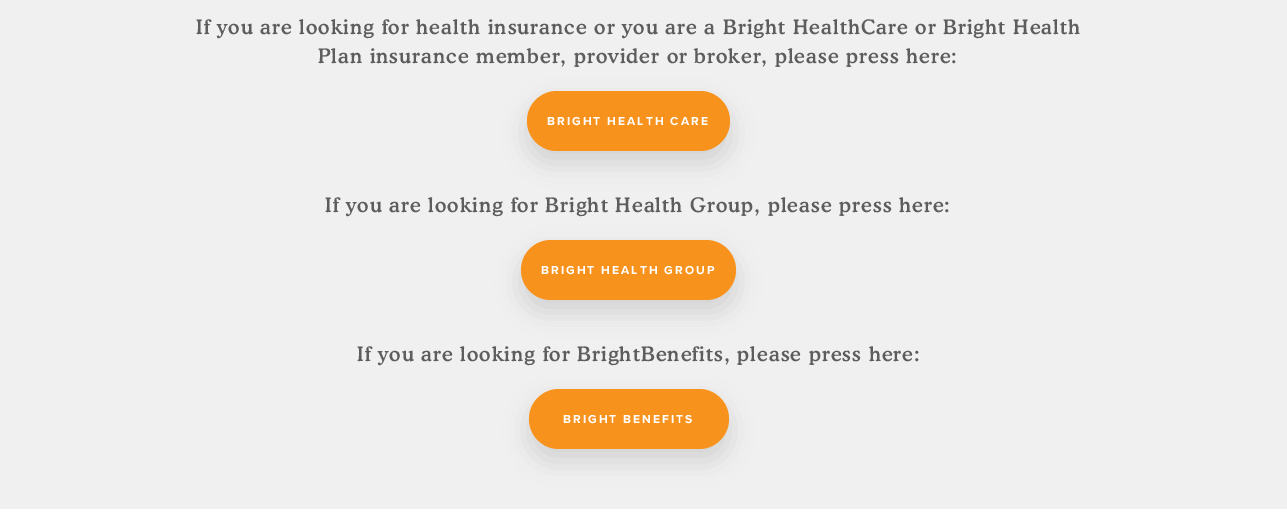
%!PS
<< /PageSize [1287 523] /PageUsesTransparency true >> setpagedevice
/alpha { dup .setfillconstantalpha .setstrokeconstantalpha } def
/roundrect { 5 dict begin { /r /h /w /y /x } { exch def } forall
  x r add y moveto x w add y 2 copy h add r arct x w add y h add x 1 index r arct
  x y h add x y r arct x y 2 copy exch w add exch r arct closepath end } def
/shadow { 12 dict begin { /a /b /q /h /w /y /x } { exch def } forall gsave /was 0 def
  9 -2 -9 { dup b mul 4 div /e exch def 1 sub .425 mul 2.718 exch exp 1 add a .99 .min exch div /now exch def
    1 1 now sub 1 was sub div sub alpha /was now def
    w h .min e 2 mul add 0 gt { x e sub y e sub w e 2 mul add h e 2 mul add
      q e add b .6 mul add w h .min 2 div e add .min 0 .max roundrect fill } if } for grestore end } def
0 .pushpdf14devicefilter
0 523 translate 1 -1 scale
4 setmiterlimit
1 setgray
0 0 1287 523 rectfill
0.941 setgray
0 0 1287 509 rectfill
/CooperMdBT-Medium [20 0 0 -20 0 0] selectfont
0.365 setgray
196 34 moveto 1 0 (If you are looking for health insurance or you are a Bright HealthCare or Bright Health) ashow
318 63 moveto 1 0 (Plan insurance member, provider or broker, please press here:) ashow
0 setgray
527 103 203 60 30 12 0.12 shadow
0.969 0.573 0.114 setrgbcolor
527 91 203 60 30 roundrect fill
/ProximaNova-Bold [12 0 0 -12 0 0] selectfont
1 setgray
547 125 moveto 2 0 (BRIGHT HEALTH CARE) ashow
/CooperMdBT-Medium [20 0 0 -20 0 0] selectfont
0.365 setgray
325 212 moveto 1 0 (If you are looking for Bright Health Group, please press here:) ashow
0 setgray
521 252 215 60 30 12 0.12 shadow
0.969 0.573 0.114 setrgbcolor
521 240 215 60 30 roundrect fill
/ProximaNova-Bold [12 0 0 -12 0 0] selectfont
1 setgray
541 274 moveto 2 0 (BRIGHT HEALTH GROUP) ashow
/CooperMdBT-Medium [20 0 0 -20 0 0] selectfont
0.365 setgray
357 361 moveto 1 0 (If you are looking for BrightBenefits, please press here:) ashow
0 setgray
529 401 200 60 30 12 0.12 shadow
0.969 0.573 0.114 setrgbcolor
529 389 200 60 30 roundrect fill
/ProximaNova-Bold [12 0 0 -12 0 0] selectfont
1 setgray
563 423 moveto 2 0 (BRIGHT BENEFITS) ashow
.poppdf14devicefilter showpage
